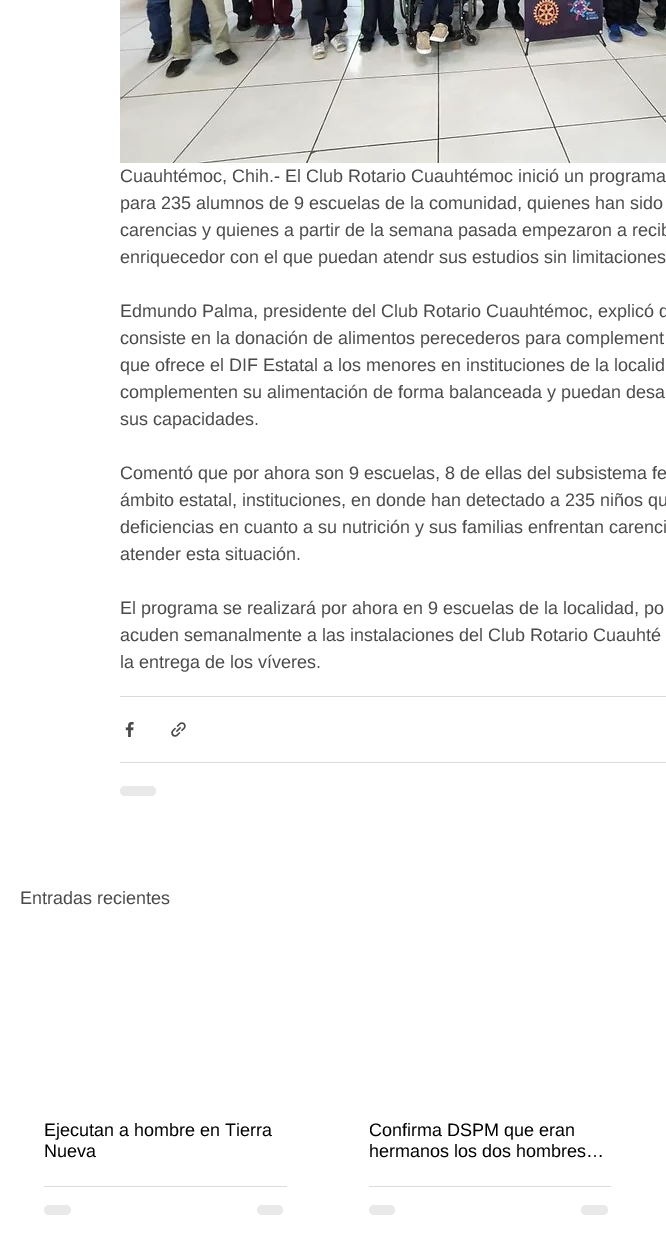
%!PS
<< /PageSize [666 1253] >> setpagedevice
/roundrect { 5 dict begin { /r /h /w /y /x } { exch def } forall
  x r add y moveto x w add y 2 copy h add r arct x w add y h add x 1 index r arct
  x y h add x y r arct x y 2 copy exch w add exch r arct closepath end } def
/picture { 5 dict begin { /h /w /y /x /name } { exch def } forall
  gsave x y translate w h scale
  w h 8 [w 0 0 h 0 0] name (r) file false 3 colorimage grestore end } def
0 1253 translate 1 -1 scale
4 setmiterlimit
1 setgray
0 0 666 1253 rectfill
(img1.rgb) 120 0 546 163 picture
/LiberationSans-Regular [18 0 0 -18 0 0] selectfont
0.29 setgray
120 182 moveto (Cuauhtémoc, Chih.- El Club Rotario Cuauhtémoc inició un programa) show
120 209 moveto (para 235 alumnos de 9 escuelas de la comunidad, quienes han sido) show
120 236 moveto (carencias y quienes a partir de la semana pasada empezaron a recib) show
120 263 moveto (enriquecedor con el que puedan atendr sus estudios sin limitaciones) show
120 317 moveto (Edmundo Palma, presidente del Club Rotario Cuauhtémoc, explicó q) show
120 344 moveto (consiste en la donación de alimentos perecederos para complement) show
120 371 moveto (que ofrece el DIF Estatal a los menores en instituciones de la localid) show
120 398 moveto (complementen su alimentación de forma balanceada y puedan desa) show
120 425 moveto (sus capacidades.) show
120 479 moveto (Comentó que por ahora son 9 escuelas, 8 de ellas del subsistema fe) show
120 506 moveto (ámbito estatal, instituciones, en donde han detectado a 235 niños qu) show
120 533 moveto (deficiencias en cuanto a su nutrición y sus familias enfrentan carenci) show
120 560 moveto (atender esta situación.) show
120 614 moveto (El programa se realizará por ahora en 9 escuelas de la localidad, po) show
120 641 moveto (acuden semanalmente a las instalaciones del Club Rotario Cuauhté) show
120 668 moveto (la entrega de los víveres.) show
0.859 setgray
120 696 546 1 rectfill
(img2.rgb) 125 722 9 15 picture
(img3.rgb) 171 722 15 15 picture
120 762 546 1 rectfill
0.914 setgray
120 786 36 10 5 roundrect fill
0.29 setgray
20 904 moveto (Entradas recientes) show
0 setgray
44 1136 moveto (Ejecutan a hombre en Tierra) show
44 1157 moveto (Nueva) show
0.859 setgray
44 1186 243 1 rectfill
0.914 setgray
44 1205 27 10 5 roundrect fill
257 1205 26 10 5 roundrect fill
0 setgray
369 1136 moveto (Confirma DSPM que eran) show
369 1157 moveto (hermanos los dos hombres…) show
0.859 setgray
369 1186 242 1 rectfill
0.914 setgray
369 1205 26 10 5 roundrect fill
581 1205 27 10 5 roundrect fill
showpage
